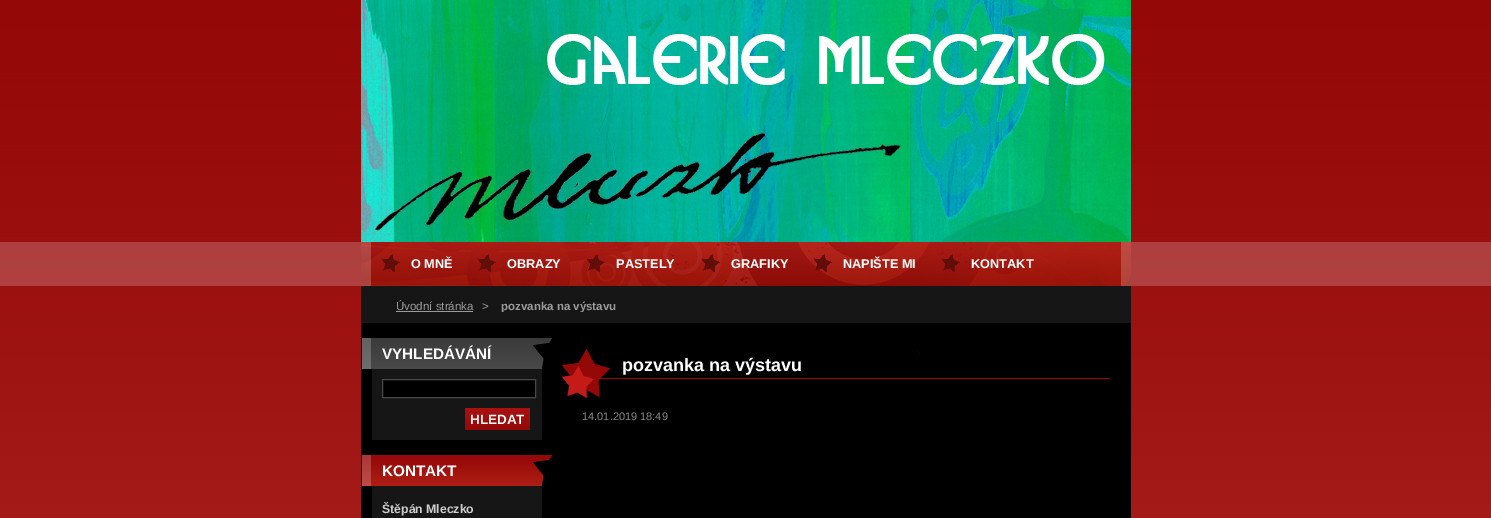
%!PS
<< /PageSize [1491 518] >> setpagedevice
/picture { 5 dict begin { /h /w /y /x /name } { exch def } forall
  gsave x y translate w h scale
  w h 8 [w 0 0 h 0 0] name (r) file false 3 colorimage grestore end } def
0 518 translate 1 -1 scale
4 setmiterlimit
1 setgray
0 0 1491 518 rectfill
(img1.rgb) 0 0 1491 518 picture
0 setgray
361 323 770 195 rectfill
(img2.rgb) 361 0 770 242 picture
(img3.rgb) 361 242 770 44 picture
(img4.rgb) 382 254 18 18 picture
/LiberationSans-Bold [12.75 0 0 -12.75 0 0] selectfont
1 setgray
411 268 moveto (O MNĚ) show
(img5.rgb) 478 254 18 18 picture
507 268 moveto (OBRAZY) show
(img6.rgb) 587 254 18 18 picture
616 268 moveto (PASTELY) show
(img7.rgb) 702 254 18 18 picture
731 268 moveto (GRAFIKY) show
(img8.rgb) 814 254 18 18 picture
843 268 moveto (NAPIŠTE MI) show
(img9.rgb) 942 254 18 18 picture
971 268 moveto (KONTAKT) show
0.086 setgray
361 286 770 37 rectfill
/LiberationSans-Regular [11.5 0 0 -11.5 0 0] selectfont
0.608 setgray
396 310 moveto (Úvodní stránka) show
396 311 77 1 rectfill
482 310 moveto (>) show
gsave
396 300 450 12 rectclip
/LiberationSans-Bold [11.5 0 0 -11.5 0 0] selectfont
501 310 moveto (pozvanka na výstavu) show
grestore
(img10.rgb) 362 338 190 31 picture
/LiberationSans-Bold [15.25 0 0 -15.25 0 0] selectfont
1 setgray
382 359 moveto (VYHLEDÁVÁNÍ) show
0.086 setgray
372 369 170 71 rectfill
0 setgray
newpath 382.5 379.5 moveto 535.5 379.5 lineto 535.5 397.5 lineto 382.5 397.5 lineto closepath gsave fill grestore
0.282 setgray
stroke
(img11.rgb) 465 408 65 22 picture
/LiberationSans-Bold [13.5 0 0 -13.5 0 0] selectfont
1 setgray
470 424 moveto (HLEDAT) show
(img12.rgb) 362 455 190 31 picture
/LiberationSans-Bold [15.25 0 0 -15.25 0 0] selectfont
382 476 moveto (KONTAKT) show
0.086 setgray
372 486 170 32 rectfill
/LiberationSans-Bold [12.25 0 0 -12.25 0 0] selectfont
0.804 setgray
382 513 moveto (Štěpán Mleczko) show
(img13.rgb) 562 349 548 49 picture
/LiberationSans-Bold [18 0 0 -18 0 0] selectfont
1 setgray
622 371 moveto (pozvanka na výstavu) show
/LiberationSans-Regular [11 0 0 -11 0 0] selectfont
0.533 setgray
582 420 moveto (14.01.2019 18:49) show
showpage
